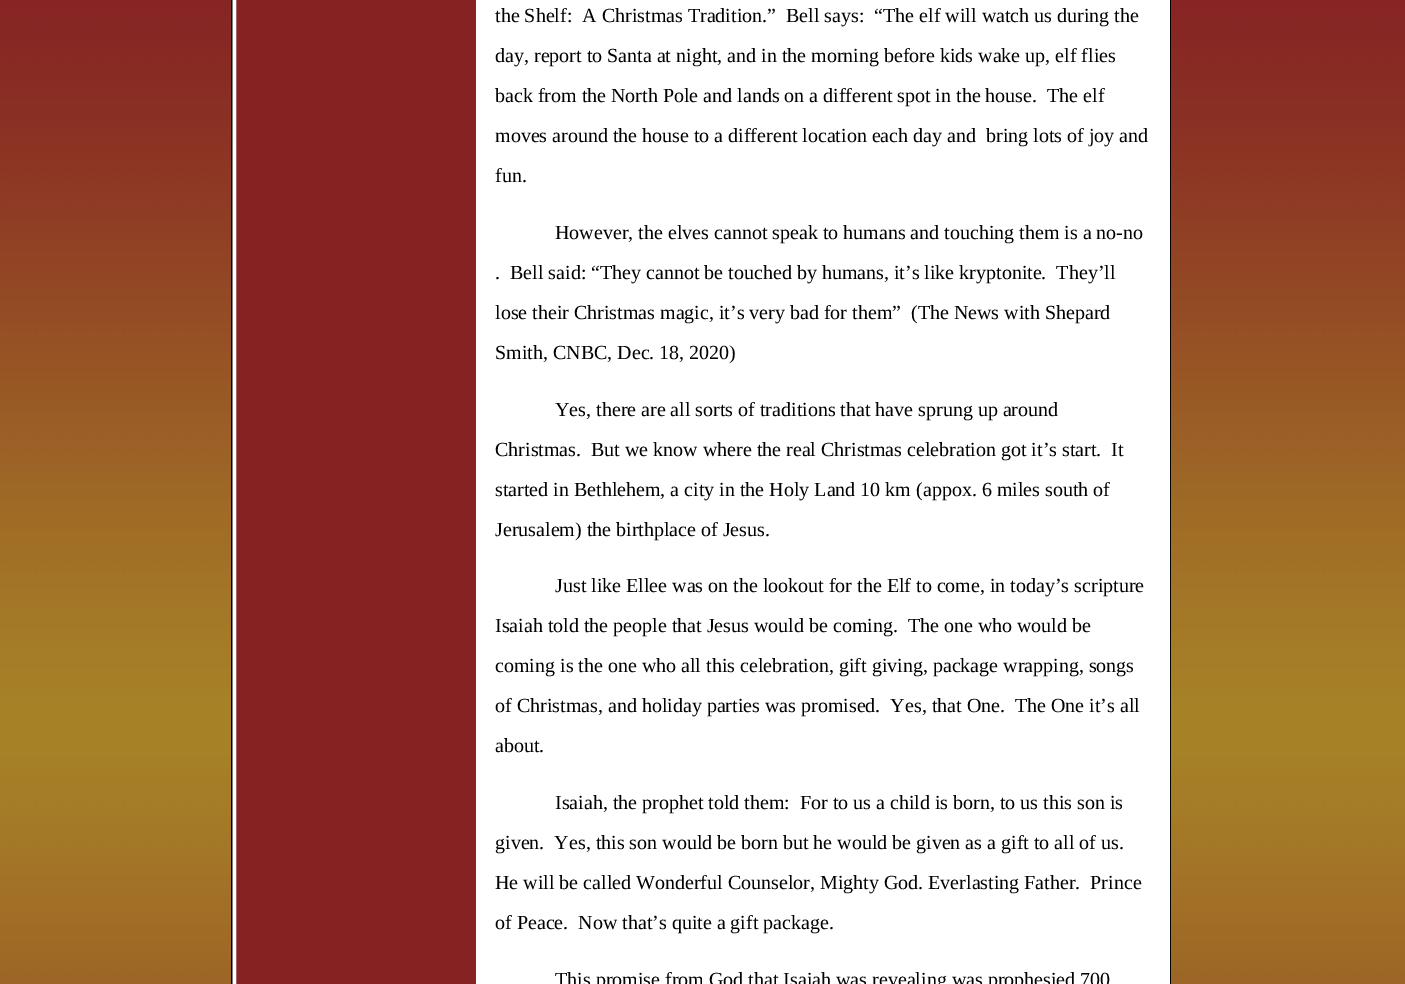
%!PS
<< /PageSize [1405 984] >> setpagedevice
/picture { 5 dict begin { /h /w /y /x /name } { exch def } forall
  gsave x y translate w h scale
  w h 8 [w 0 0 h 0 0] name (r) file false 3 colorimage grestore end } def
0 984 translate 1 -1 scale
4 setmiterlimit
1 setgray
0 0 1405 984 rectfill
(img1.rgb) 0 0 1405 984 picture
0 setgray
231 0 940 984 rectfill
(img2.rgb) 232 0 244 984 picture
1 setgray
476 0 694 984 rectfill
/LiberationSerif-Regular [20 0 0 -20 0 0] selectfont
0 setgray
495 22 moveto (the Shelf:  A Christmas Tradition.”  Bell says:  “The elf will watch us during the) show
495 62 moveto (day, report to Santa at night, and in the morning before kids wake up, elf flies) show
495 102 moveto (back from the North Pole and lands on a different spot in the house.  The elf) show
495 142 moveto (moves around the house to a different location each day and  bring lots of joy and) show
495 182 moveto (fun.) show
555 239 moveto (However, the elves cannot speak to humans and touching them is a no-no) show
495 279 moveto (.  Bell said: “They cannot be touched by humans, it’s like kryptonite.  They’ll) show
495 319 moveto (lose their Christmas magic, it’s very bad for them”  \(The News with Shepard) show
495 359 moveto (Smith, CNBC, Dec. 18, 2020\)) show
555 416 moveto (Yes, there are all sorts of traditions that have sprung up around) show
495 456 moveto (Christmas.  But we know where the real Christmas celebration got it’s start.  It) show
495 496 moveto (started in Bethlehem, a city in the Holy Land 10 km \(appox. 6 miles south of) show
495 536 moveto (Jerusalem\) the birthplace of Jesus.) show
555 592 moveto (Just like Ellee was on the lookout for the Elf to come, in today’s scripture) show
495 632 moveto (Isaiah told the people that Jesus would be coming.  The one who would be) show
495 672 moveto (coming is the one who all this celebration, gift giving, package wrapping, songs) show
495 712 moveto (of Christmas, and holiday parties was promised.  Yes, that One.  The One it’s all) show
495 752 moveto (about.) show
555 809 moveto (Isaiah, the prophet told them:  For to us a child is born, to us this son is) show
495 849 moveto (given.  Yes, this son would be born but he would be given as a gift to all of us.) show
495 889 moveto (He will be called Wonderful Counselor, Mighty God. Everlasting Father.  Prince) show
495 929 moveto (of Peace.  Now that’s quite a gift package.) show
555 986 moveto (This promise from God that Isaiah was revealing was prophesied 700) show
showpage
